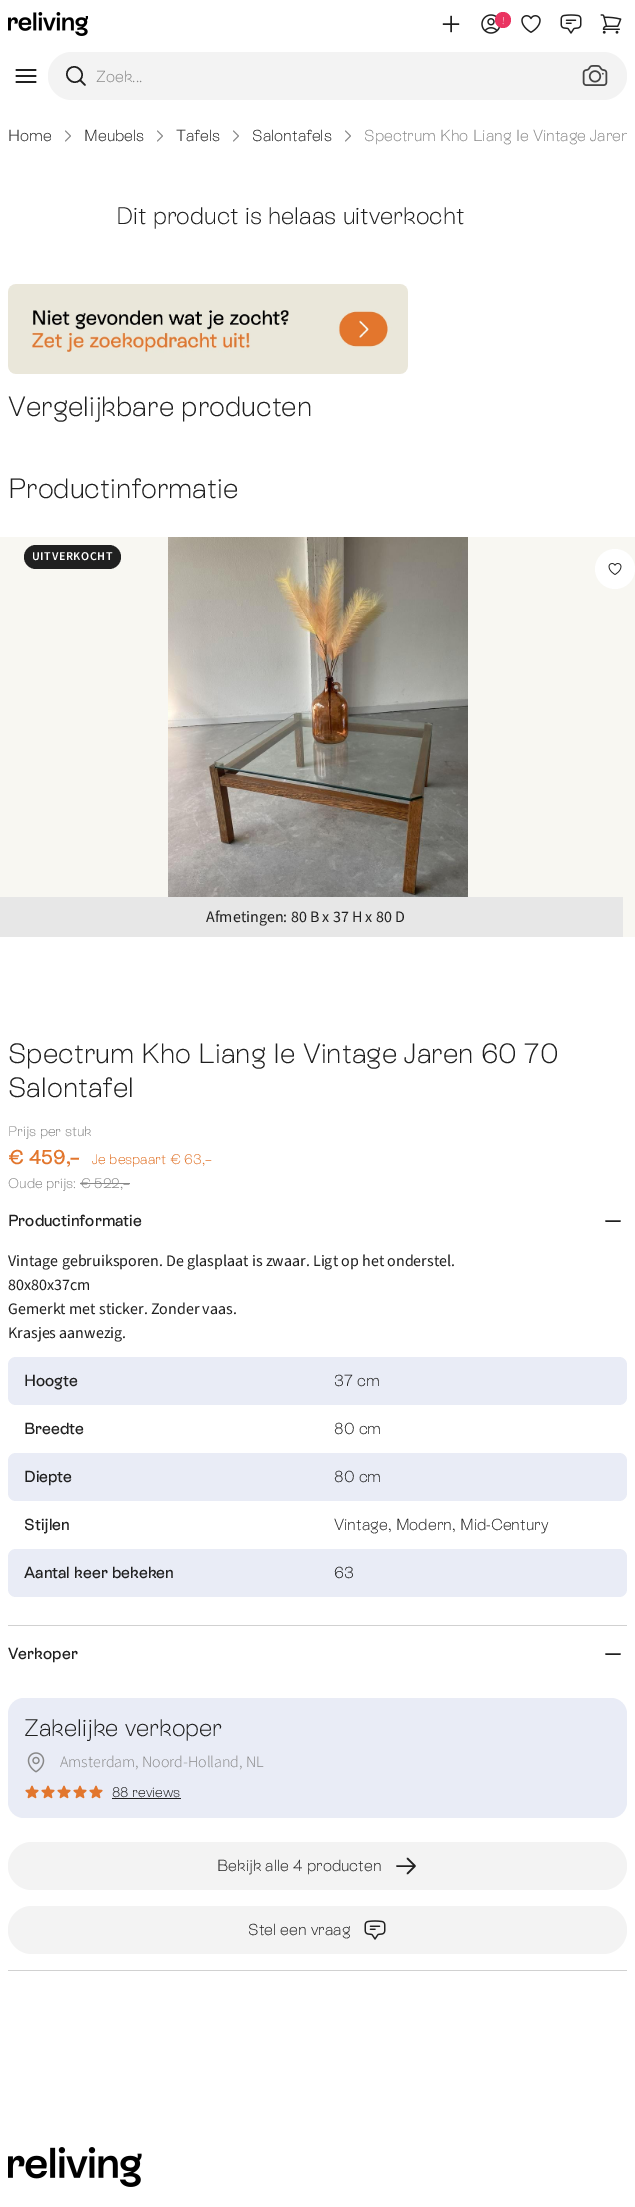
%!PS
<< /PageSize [635 2207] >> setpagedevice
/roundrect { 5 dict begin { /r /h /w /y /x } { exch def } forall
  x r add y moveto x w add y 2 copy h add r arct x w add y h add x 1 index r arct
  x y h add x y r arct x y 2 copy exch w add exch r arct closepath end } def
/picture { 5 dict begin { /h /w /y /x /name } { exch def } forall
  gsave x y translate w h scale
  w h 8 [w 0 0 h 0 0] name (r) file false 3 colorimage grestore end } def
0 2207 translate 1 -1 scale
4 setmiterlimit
1 setgray
0 0 635 2207 rectfill
(img1.rgb) 8 12 80 24 picture
0.125 setgray
1.5 setlinewidth
1 setlinecap
1 setlinejoin
newpath 451 16.5 moveto 451 31.5 lineto 458.5 24 moveto 443.5 24 lineto stroke
(img2.rgb) 481 14 20 20 picture
0.918 0.204 0.38 setrgbcolor
newpath 503 20 8 0 360 arc closepath fill
/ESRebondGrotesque-ExtraLight [10 0 0 -10 0 0] selectfont
1 setgray
502 24 moveto (!) show
(img3.rgb) 521 15 20 18 picture
(img4.rgb) 560 14 22 20 picture
(img5.rgb) 600 14 22 20 picture
0.125 setgray
1.8 setlinewidth
newpath 16.5 70 moveto 35.5 70 lineto 16.5 76 moveto 35.5 76 lineto 16.5 82 moveto 35.5 82 lineto stroke
0.953 setgray
48 52 579 48 24 roundrect fill
0.125 setgray
1.5 setlinewidth
newpath 85 85 moveto 80 80 lineto 80 80 moveto 87 73 76 62 69 69 curveto 62 76 73 87 80 80 curveto closepath stroke
/ESRebondGrotesque-ExtraLight [16 0 0 -16 0 0] selectfont
0.533 setgray
96 82 moveto (Zoek...) show
(img6.rgb) 582 65 26 21 picture
0.125 setgray
8 141 moveto (Home) show
0.533 setgray
1 setlinewidth
newpath 65.5 131 moveto 70.5 136 lineto 65.5 141 lineto stroke
0.125 setgray
84 141 moveto (Meubels) show
0.533 setgray
newpath 157.5 131 moveto 162.5 136 lineto 157.5 141 lineto stroke
0.125 setgray
176 141 moveto (Tafels) show
0.533 setgray
newpath 233.5 131 moveto 238.5 136 lineto 233.5 141 lineto stroke
0.125 setgray
252 141 moveto (Salontafels) show
0.533 setgray
newpath 345.5 131 moveto 350.5 136 lineto 345.5 141 lineto stroke
gsave
8 100 619 72 rectclip
364 141 moveto (Spectrum Kho Liang Ie Vintage Jaren) show
grestore
/ESRebondGrotesque-ExtraLight [24 0 0 -24 0 0] selectfont
0.125 setgray
116 224 moveto (Dit product is helaas uitverkocht) show
(img7.rgb) 8 284 400 90 picture
/ESRebondGrotesque-ExtraLight [28 0 0 -28 0 0] selectfont
8 416 moveto (Vergelijkbare producten) show
8 498 moveto (Productinformatie) show
0.973 0.969 0.949 setrgbcolor
0 537 635 400 rectfill
0.125 setgray
24 545 97 24 12 roundrect fill
/SourceSans3-SemiBold [12 0 0 -12 0 0] selectfont
1 setgray
32 560 moveto 0.6 0 (UITVERKOCHT) ashow
(img8.rgb) 168 537 300 360 picture
newpath 615 569 20 0 360 arc closepath fill
(img9.rgb) 608 563 14 12 picture
0.906 setgray
0 897 623 40 rectfill
/SourceSans3-Regular [16 0 0 -16 0 0] selectfont
0.125 setgray
206 922 moveto (Afmetingen: 80 B x 37 H x 80 D) show
/ESRebondGrotesque-ExtraLight [28 0 0 -28 0 0] selectfont
8 1063 moveto (Spectrum Kho Liang Ie Vintage Jaren 60 70) show
8 1097 moveto (Salontafel) show
/ESRebondGrotesque-ExtraLight [14 0 0 -14 0 0] selectfont
0.533 setgray
8 1136 moveto (Prijs per stuk) show
/ESRebondGrotesque-Medium [20 0 0 -20 0 0] selectfont
0.886 0.463 0.176 setrgbcolor
8 1164 moveto (€ 459,–) show
/ESRebondGrotesque-ExtraLight [14 0 0 -14 0 0] selectfont
92 1164 moveto (Je bespaart € 63,–) show
0.533 setgray
8 1188 moveto (Oude prijs: € 522,–) show
80 1183 50 1 rectfill
/ESRebondGrotesque-Medium [16 0 0 -16 0 0] selectfont
0.125 setgray
8 1226 moveto (Productinformatie) show
1.5 setlinewidth
newpath 606 1221 moveto 620 1221 lineto stroke
0.82 setgray
8 1625 619 1 rectfill
/SourceSans3-Regular [16 0 0 -16 0 0] selectfont
0.125 setgray
8 1266 moveto (Vintage gebruiksporen. De glasplaat is zwaar. Ligt op het onderstel.) show
8 1290 moveto (80x80x37cm) show
8 1314 moveto (Gemerkt met sticker. Zonder vaas.) show
8 1338 moveto (Krasjes aanwezig.) show
0.914 0.925 0.965 setrgbcolor
8 1357 619 48 8 roundrect fill
/ESRebondGrotesque-Medium [16 0 0 -16 0 0] selectfont
0.125 setgray
24 1386 moveto (Hoogte) show
/ESRebondGrotesque-ExtraLight [16 0 0 -16 0 0] selectfont
334 1386 moveto (37 cm) show
/ESRebondGrotesque-Medium [16 0 0 -16 0 0] selectfont
24 1434 moveto (Breedte) show
/ESRebondGrotesque-ExtraLight [16 0 0 -16 0 0] selectfont
334 1434 moveto (80 cm) show
0.914 0.925 0.965 setrgbcolor
8 1453 619 48 8 roundrect fill
/ESRebondGrotesque-Medium [16 0 0 -16 0 0] selectfont
0.125 setgray
24 1482 moveto (Diepte) show
/ESRebondGrotesque-ExtraLight [16 0 0 -16 0 0] selectfont
334 1482 moveto (80 cm) show
/ESRebondGrotesque-Medium [16 0 0 -16 0 0] selectfont
24 1530 moveto (Stijlen) show
/ESRebondGrotesque-ExtraLight [16 0 0 -16 0 0] selectfont
334 1530 moveto (Vintage, Modern, Mid-Century) show
0.914 0.925 0.965 setrgbcolor
8 1549 619 48 8 roundrect fill
/ESRebondGrotesque-Medium [16 0 0 -16 0 0] selectfont
0.125 setgray
24 1578 moveto (Aantal keer bekeken) show
/ESRebondGrotesque-ExtraLight [16 0 0 -16 0 0] selectfont
334 1578 moveto (63) show
/ESRebondGrotesque-Medium [16 0 0 -16 0 0] selectfont
8 1659 moveto (Verkoper) show
newpath 606 1654 moveto 620 1654 lineto stroke
0.82 setgray
8 1970 619 1 rectfill
0.914 0.925 0.965 setrgbcolor
8 1698 619 120 16 roundrect fill
/ESRebondGrotesque-ExtraLight [24 0 0 -24 0 0] selectfont
0.125 setgray
24 1736 moveto (Zakelijke verkoper) show
(img10.rgb) 27 1752 18 21 picture
/SourceSans3-Light [16 0 0 -16 0 0] selectfont
0.533 setgray
60 1767 moveto (Amsterdam, Noord-Holland, NL) show
(img11.rgb) 25 1785 14 14 picture
(img11.rgb) 41 1785 14 14 picture
(img11.rgb) 57 1785 14 14 picture
(img11.rgb) 73 1785 14 14 picture
(img11.rgb) 89 1785 14 14 picture
/ESRebondGrotesque-ExtraLight [14 0 0 -14 0 0] selectfont
0.125 setgray
112 1797 moveto (88 reviews) show
112 1798 69 1 rectfill
0.953 setgray
8 1842 619 48 24 roundrect fill
/ESRebondGrotesque-ExtraLight [16 0 0 -16 0 0] selectfont
0.125 setgray
217 1871 moveto (Bekijk alle 4 producten) show
newpath 407.5 1858.5 moveto 415 1866 lineto 415 1866 moveto 407.5 1873.5 lineto 415 1866 moveto 397 1866 lineto stroke
0.953 setgray
8 1906 619 48 24 roundrect fill
0.125 setgray
248 1935 moveto (Stel een vraag) show
(img12.rgb) 364 1920 22 20 picture
(img13.rgb) 8 2147 134 40 picture
showpage
